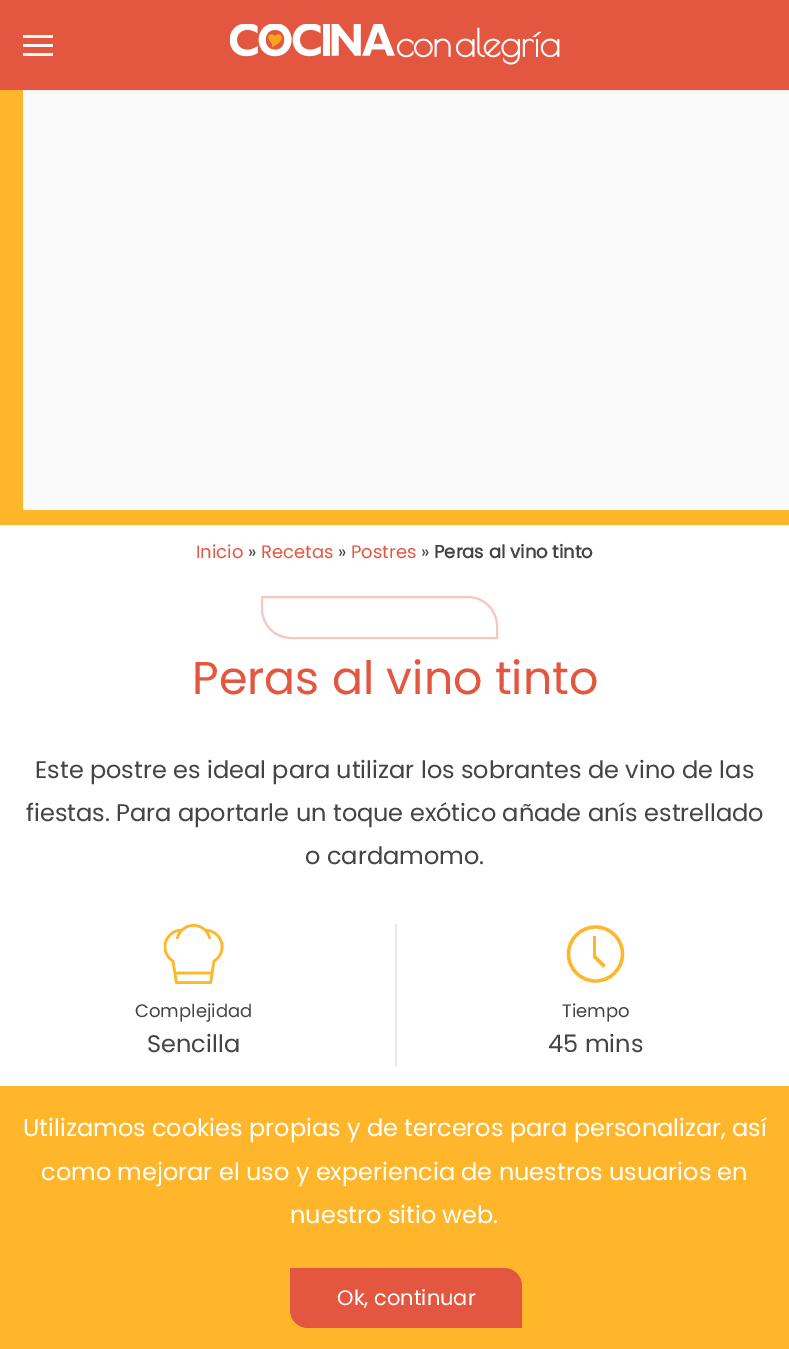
%!PS
<< /PageSize [789 1349] >> setpagedevice
/picture { 5 dict begin { /h /w /y /x /name } { exch def } forall
  gsave x y translate w h scale
  w h 8 [w 0 0 h 0 0] name (r) file false 3 colorimage grestore end } def
0 1349 translate 1 -1 scale
4 setmiterlimit
1 setgray
0 0 789 1349 rectfill
0.89 0.337 0.251 setrgbcolor
0 0 789 90 rectfill
0.969 setgray
23 35 30 3 rectfill
23 44 30 3 rectfill
23 53 30 3 rectfill
(img1.rgb) 230 24 330 41 picture
1 0.714 0.169 setrgbcolor
0 91 789 434 rectfill
0.992 0.69 0.173 setrgbcolor
0 90 23 1 rectfill
0.98 setgray
23 91 766 419 rectfill
0.976 0.941 0.937 setrgbcolor
23 90 766 1 rectfill
/Poppins-Regular [18 0 0 -18 0 0] selectfont
0.89 0.337 0.251 setrgbcolor
196 558 moveto (Inicio) show
0.267 setgray
248 558 moveto (») show
0.89 0.337 0.251 setrgbcolor
261 558 moveto (Recetas) show
0.267 setgray
338 558 moveto (») show
0.89 0.337 0.251 setrgbcolor
351 558 moveto (Postres) show
0.267 setgray
421 558 moveto (») show
/Poppins-Bold [18 0 0 -18 0 0] selectfont
434 558 moveto (Peras al vino tinto) show
0.965 0.78 0.753 setrgbcolor
2 setlinewidth
newpath 262 597 moveto 468 597 lineto 484 597 497 610 497 626 curveto 497 638 lineto 291 638 lineto 275 638 262 625 262 609 curveto closepath stroke
/Poppins-Regular [46 0 0 -46 0 0] selectfont
0.89 0.337 0.251 setrgbcolor
192 694 moveto (Peras al vino tinto) show
/Poppins-Regular [24 0 0 -24 0 0] selectfont
0.267 setgray
35 778 moveto (Este postre es ideal para utilizar los sobrantes de vino de las) show
26 821 moveto (fiestas. Para aportarle un toque exótico añade anís estrellado) show
305 864 moveto (o cardamomo.) show
(img2.rgb) 164 924 60 60 picture
/Poppins-Regular [18 0 0 -18 0 0] selectfont
135 1017 moveto (Complejidad) show
/Poppins-Regular [24 0 0 -24 0 0] selectfont
147 1052 moveto (Sencilla) show
0.914 setgray
395 924 2 143 rectfill
1 0.714 0.169 setrgbcolor
3.3 setlinewidth
newpath 595.5 954 27 0 360 arc closepath stroke
593 936 3 21 rectfill
newpath 604.5 966.5 moveto 594 956 lineto stroke
/Poppins-Regular [18 0 0 -18 0 0] selectfont
0.267 setgray
562 1017 moveto (Tiempo) show
/Poppins-Regular [24 0 0 -24 0 0] selectfont
548 1052 moveto (45 mins) show
1 0.714 0.169 setrgbcolor
0 1086 789 263 rectfill
1 setgray
23 1136 moveto (Utilizamos cookies propias y de terceros para personalizar, así) show
41 1180 moveto (como mejorar el uso y experiencia de nuestros usuarios en) show
290 1223 moveto (nuestro sitio web.) show
0.89 0.337 0.251 setrgbcolor
newpath 290 1268 moveto 504 1268 lineto 514 1268 522 1276 522 1286 curveto 522 1328 lineto 308 1328 lineto 298 1328 290 1320 290 1310 curveto closepath fill
/Poppins-Regular [21 0 0 -21 0 0] selectfont
1 setgray
337 1305 moveto (Ok, continuar) show
showpage
